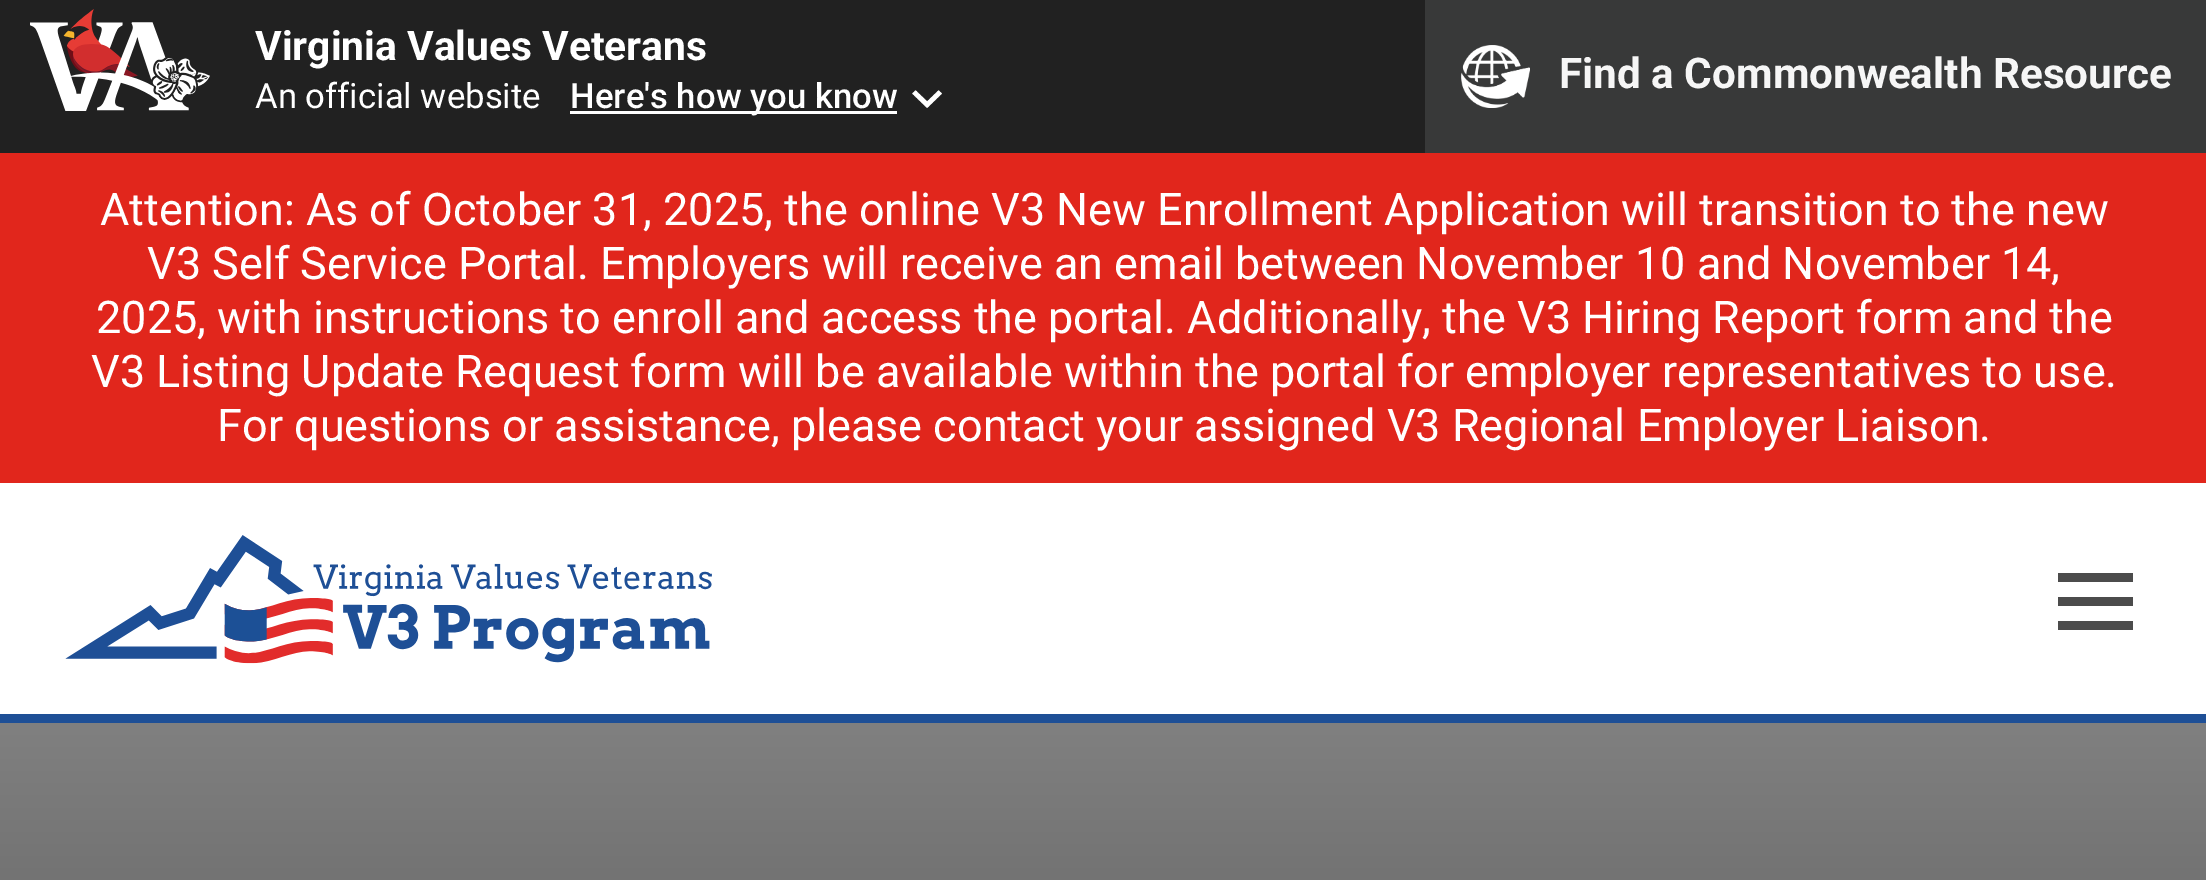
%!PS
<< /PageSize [2206 880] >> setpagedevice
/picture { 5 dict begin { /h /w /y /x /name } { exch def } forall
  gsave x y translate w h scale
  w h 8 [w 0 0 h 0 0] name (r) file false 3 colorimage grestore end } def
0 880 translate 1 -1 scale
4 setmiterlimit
1 setgray
0 0 2206 880 rectfill
0.129 setgray
0 0 1425 153 rectfill
(img1.rgb) 30 9 180 102 picture
/Roboto-Bold [40.75 0 0 -40.75 0 0] selectfont
1 setgray
255 60 moveto (Virginia Values Veterans) show
/Roboto-Regular [34.75 0 0 -34.75 0 0] selectfont
255 108 moveto (An official website) show
570 111 327 3 rectfill
/Roboto-Medium [34.75 0 0 -34.75 0 0] selectfont
570 108 moveto (Here's how you know) show
(img2.rgb) 912 90 30 18 picture
0.22 0.224 0.224 setrgbcolor
1425 0 781 153 rectfill
(img3.rgb) 1461 45 69 63 picture
/Roboto-Bold [42.25 0 0 -42.25 0 0] selectfont
0.965 setgray
1559 88 moveto (Find a Commonwealth Resource) show
0.882 0.149 0.11 setrgbcolor
0 153 2206 330 rectfill
/Roboto-Regular [45 0 0 -45 0 0] selectfont
1 setgray
100 225 moveto (Attention: As of October 31, 2025, the online V3 New Enrollment Application will transition to the new) show
147 279 moveto (V3 Self Service Portal. Employers will receive an email between November 10 and November 14,) show
96 333 moveto (2025, with instructions to enroll and access the portal. Additionally, the V3 Hiring Report form and the) show
91 387 moveto (V3 Listing Update Request form will be available within the portal for employer representatives to use.) show
217 441 moveto (For questions or assistance, please contact your assigned V3 Regional Employer Liaison.) show
0.118 0.31 0.588 setrgbcolor
0 714 2206 9 rectfill
(img4.rgb) 65 535 647 129 picture
0.298 setgray
2058 573 75 9 rectfill
2058 597 75 9 rectfill
2058 621 75 9 rectfill
gsave newpath 0 723 moveto 2206 723 lineto 2206 880 lineto 0 880 lineto closepath clip newpath
<< /ShadingType 2 /ColorSpace /DeviceRGB /Coords [1104 723 1104 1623] /Extend [true true] /Function << /FunctionType 2 /Domain [0 1] /C0 [0.502 0.502 0.502] /C1 [0.2 0.2 0.2] /N 1 >> >> shfill grestore
showpage
